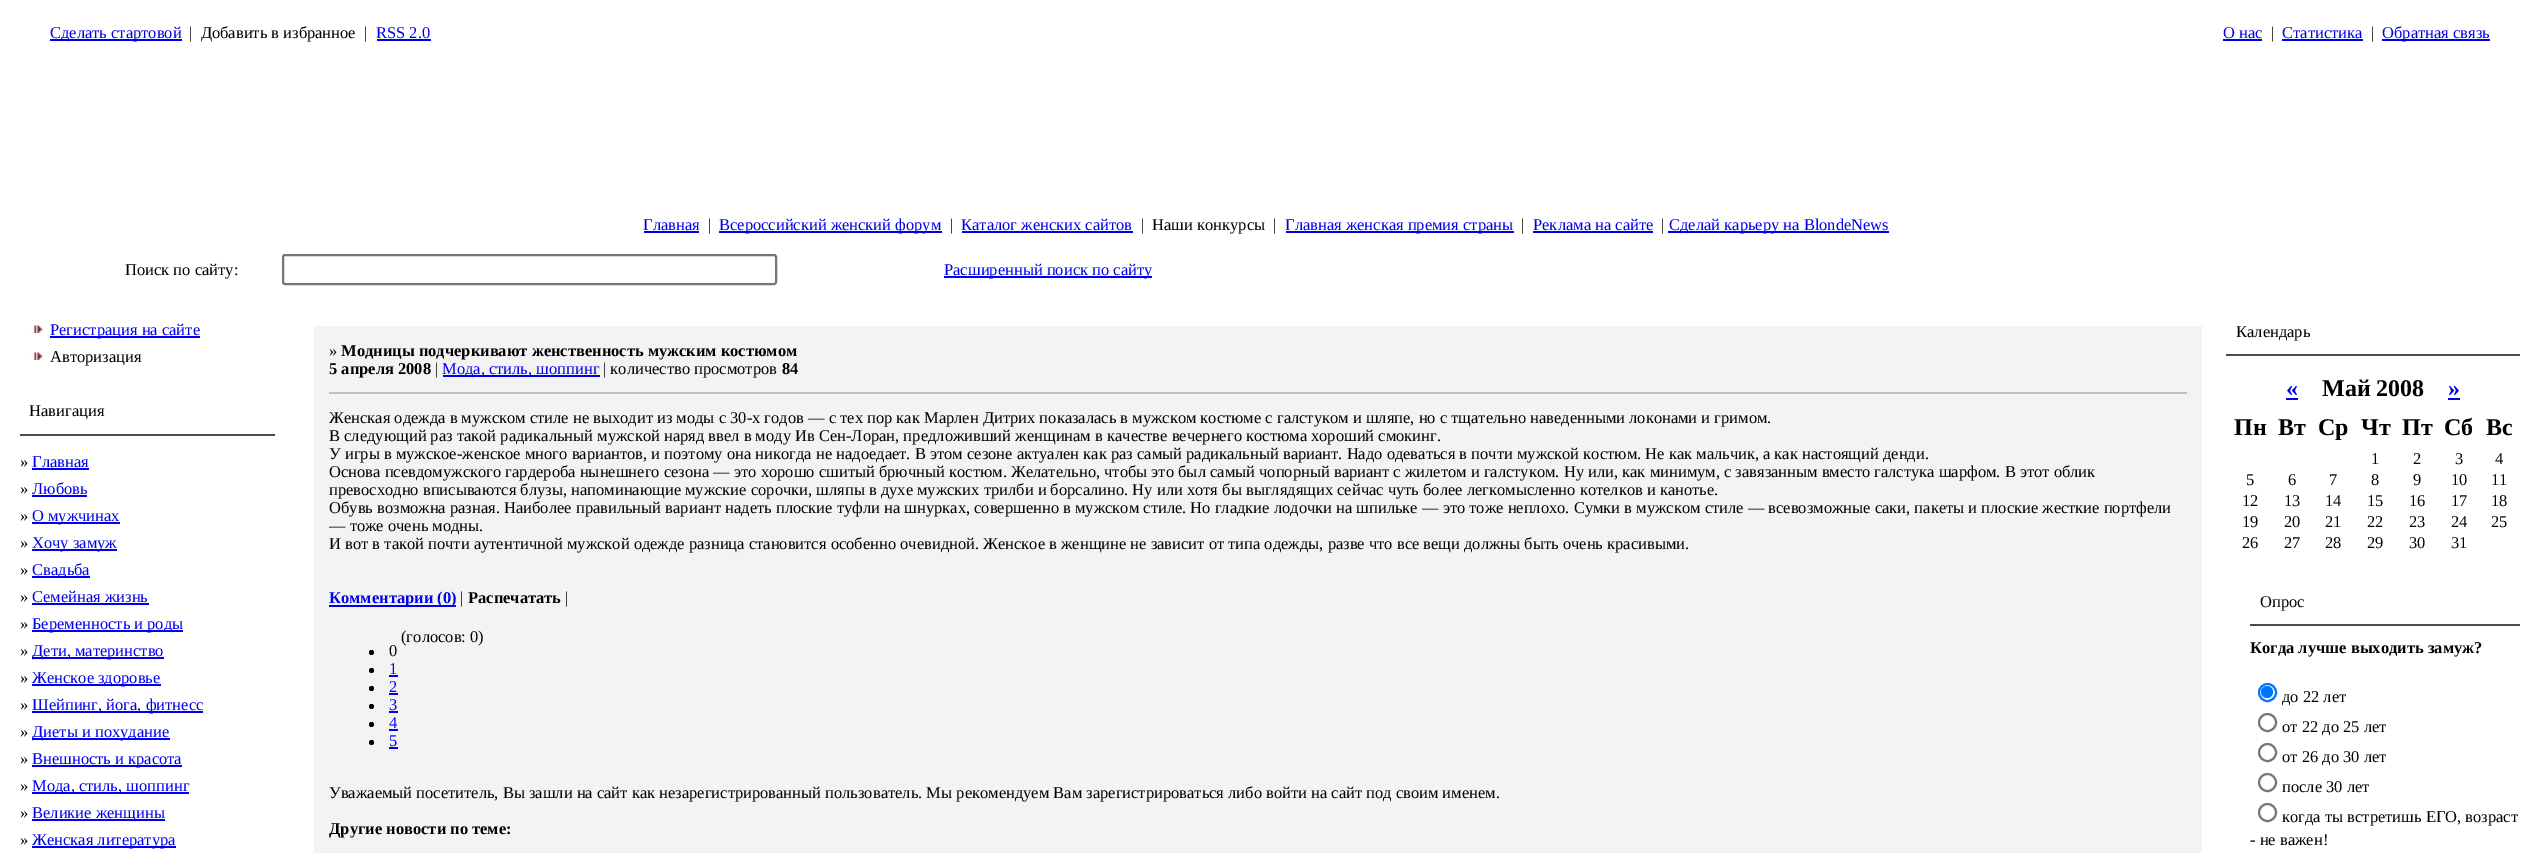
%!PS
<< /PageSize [2539 853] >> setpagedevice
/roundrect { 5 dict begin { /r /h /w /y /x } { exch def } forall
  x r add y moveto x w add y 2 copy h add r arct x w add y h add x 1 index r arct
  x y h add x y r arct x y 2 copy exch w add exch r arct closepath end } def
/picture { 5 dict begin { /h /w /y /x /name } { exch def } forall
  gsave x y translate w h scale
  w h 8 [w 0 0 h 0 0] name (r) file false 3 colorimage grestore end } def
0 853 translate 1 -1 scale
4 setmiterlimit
1 setgray
0 0 2539 853 rectfill
0 0 0.933 setrgbcolor
50 39 132 2 rectfill
/LiberationSerif-Regular [16.5 0 0 -16.5 0 0] selectfont
50 38 moveto (Сделать стартовой) show
0 setgray
189 38 moveto (|  Добавить в избранное  |) show
0 0 0.933 setrgbcolor
376 38 moveto (RSS 2.0) show
377 39 54 2 rectfill
2223 38 moveto (О нас) show
2223 39 39 2 rectfill
0 setgray
2271 38 moveto (|) show
0 0 0.933 setrgbcolor
2282 38 moveto (Статистика) show
2282 39 81 2 rectfill
0 setgray
2371 38 moveto (|) show
0 0 0.933 setrgbcolor
2382 39 108 2 rectfill
2382 38 moveto (Обратная связь) show
643 230 moveto (Главная) show
644 231 55 2 rectfill
0 setgray
708 230 moveto (|) show
0 0 0.933 setrgbcolor
719 231 223 2 rectfill
719 230 moveto (Всероссийский женский форум) show
0 setgray
950 230 moveto (|) show
0 0 0.933 setrgbcolor
961 230 moveto (Каталог женских сайтов) show
962 231 171 2 rectfill
0 setgray
1141 230 moveto (|) show
1152 230 moveto (Наши конкурсы) show
1273 230 moveto (|) show
0 0 0.933 setrgbcolor
1286 231 228 2 rectfill
1285 230 moveto (Главная женская премия страны) show
0 setgray
1521 230 moveto (|) show
0 0 0.933 setrgbcolor
1533 230 moveto (Реклама на сайте) show
1533 231 120 2 rectfill
0 setgray
1661 230 moveto (|) show
0 0 0.933 setrgbcolor
1668 231 221 2 rectfill
1669 230 moveto (Сделай карьеру на BlondeNews) show
0 setgray
125 275 moveto (Поиск по сайту:) show
0.463 setgray
2 setlinewidth
283 255 493 29 2 roundrect stroke
0 0 0.933 setrgbcolor
944 276 208 2 rectfill
944 275 moveto (Расширенный поиск по сайту) show
(img1.rgb) 31 325 13 8 picture
50 336 150 2 rectfill
50 335 moveto (Регистрация на сайте) show
(img1.rgb) 31 352 13 8 picture
0 setgray
50 362 moveto (Авторизация) show
29 416 moveto (Навигация) show
0.302 0.298 0.282 setrgbcolor
20 434 255 2 rectfill
0 setgray
20 467 moveto (») show
0 0 0.933 setrgbcolor
32 467 moveto (Главная) show
32 468 57 2 rectfill
0 setgray
20 494 moveto (») show
0 0 0.933 setrgbcolor
32 494 moveto (Любовь) show
32 495 55 2 rectfill
0 setgray
20 521 moveto (») show
0 0 0.933 setrgbcolor
32 522 88 2 rectfill
32 521 moveto (О мужчинах) show
0 setgray
20 548 moveto (») show
0 0 0.933 setrgbcolor
32 549 85 2 rectfill
32 548 moveto (Хочу замуж) show
0 setgray
20 575 moveto (») show
0 0 0.933 setrgbcolor
32 576 58 2 rectfill
32 575 moveto (Свадьба) show
0 setgray
20 602 moveto (») show
0 0 0.933 setrgbcolor
32 602 moveto (Семейная жизнь) show
32 603 117 2 rectfill
0 setgray
20 629 moveto (») show
0 0 0.933 setrgbcolor
32 630 151 2 rectfill
32 629 moveto (Беременность и роды) show
0 setgray
20 656 moveto (») show
0 0 0.933 setrgbcolor
32 657 132 2 rectfill
32 656 moveto (Дети, материнство) show
0 setgray
20 683 moveto (») show
0 0 0.933 setrgbcolor
32 684 129 2 rectfill
32 683 moveto (Женское здоровье) show
0 setgray
20 710 moveto (») show
0 0 0.933 setrgbcolor
32 711 171 2 rectfill
32 710 moveto (Шейпинг, йога, фитнесс) show
0 setgray
20 737 moveto (») show
0 0 0.933 setrgbcolor
32 738 138 2 rectfill
32 737 moveto (Диеты и похудание) show
0 setgray
20 764 moveto (») show
0 0 0.933 setrgbcolor
32 765 150 2 rectfill
32 764 moveto (Внешность и красота) show
0 setgray
20 791 moveto (») show
0 0 0.933 setrgbcolor
32 792 157 2 rectfill
32 791 moveto (Мода, стиль, шоппинг) show
0 setgray
20 818 moveto (») show
0 0 0.933 setrgbcolor
32 819 133 2 rectfill
32 818 moveto (Великие женщины) show
0 setgray
20 845 moveto (») show
0 0 0.933 setrgbcolor
32 846 144 2 rectfill
32 845 moveto (Женская литература) show
0.953 setgray
314 326 1888 527 rectfill
0 setgray
329 356 moveto (») show
/LiberationSerif-Bold [16.5 0 0 -16.5 0 0] selectfont
341 356 moveto (Модницы подчеркивают женственность мужским костюмом) show
329 374 moveto (5 апреля 2008) show
/LiberationSerif-Regular [16.5 0 0 -16.5 0 0] selectfont
435 374 moveto (|) show
0 0 0.933 setrgbcolor
443 375 157 2 rectfill
442 374 moveto (Мода, стиль, шоппинг) show
0 setgray
603 374 moveto (| количество просмотров) show
/LiberationSerif-Bold [16.5 0 0 -16.5 0 0] selectfont
782 374 moveto (84) show
0.753 setgray
329 392 1858 2 rectfill
/LiberationSerif-Regular [16.5 0 0 -16.5 0 0] selectfont
0 setgray
329 423 moveto (Женская одежда в мужском стиле не выходит из моды с 30-х годов — с тех пор как Марлен Дитрих показалась в мужском костюме с галстуком и шляпе, но с тщательно наведенными локонами и гримом.) show
329 441 moveto (В следующий раз такой радикальный мужской наряд ввел в моду Ив Сен-Лоран, предложивший женщинам в качестве вечернего костюма хороший смокинг.) show
329 459 moveto (У игры в мужское-женское много вариантов, и поэтому она никогда не надоедает. В этом сезоне актуален как раз самый радикальный вариант. Надо одеваться в почти мужской костюм. Не как мальчик, а как настоящий денди.) show
329 477 moveto (Основа псевдомужского гардероба нынешнего сезона — это хорошо сшитый брючный костюм. Желательно, чтобы это был самый чопорный вариант с жилетом и галстуком. Ну или, как минимум, с завязанным вместо галстука шарфом. В этот облик) show
329 495 moveto (превосходно вписываются блузы, напоминающие мужские сорочки, шляпы в духе мужских трилби и борсалино. Ну или хотя бы выглядящих сейчас чуть более легкомысленно котелков и канотье.) show
329 513 moveto (Обувь возможна разная. Наиболее правильный вариант надеть плоские туфли на шнурках, совершенно в мужском стиле. Но гладкие лодочки на шпильке — это тоже неплохо. Сумки в мужском стиле — всевозможные саки, пакеты и плоские жесткие портфели) show
329 531 moveto (— тоже очень модны.) show
329 549 moveto (И вот в такой почти аутентичной мужской одежде разница становится особенно очевидной. Женское в женщине не зависит от типа одежды, разве что все вещи должны быть очень красивыми.) show
0 0 0.933 setrgbcolor
329 605 127 2 rectfill
/LiberationSerif-Bold [16.5 0 0 -16.5 0 0] selectfont
329 603 moveto (Комментарии \(0\)) show
/LiberationSerif-Regular [16.5 0 0 -16.5 0 0] selectfont
0 setgray
460 603 moveto (|) show
/LiberationSerif-Bold [16.5 0 0 -16.5 0 0] selectfont
468 603 moveto (Распечатать) show
/LiberationSerif-Regular [16.5 0 0 -16.5 0 0] selectfont
565 603 moveto (|) show
401 642 moveto (\(голосов: 0\)) show
newpath 371.5 652.5 2.5 0 360 arc closepath fill
389 656 moveto (0) show
newpath 371.5 670.5 2.5 0 360 arc closepath fill
0 0 0.933 setrgbcolor
389 674 moveto (1) show
389 675 9 2 rectfill
0 setgray
newpath 371.5 688.5 2.5 0 360 arc closepath fill
0 0 0.933 setrgbcolor
389 692 moveto (2) show
389 693 9 2 rectfill
0 setgray
newpath 371.5 706.5 2.5 0 360 arc closepath fill
0 0 0.933 setrgbcolor
389 710 moveto (3) show
389 711 9 2 rectfill
0 setgray
newpath 371.5 724.5 2.5 0 360 arc closepath fill
0 0 0.933 setrgbcolor
389 728 moveto (4) show
389 729 9 2 rectfill
0 setgray
newpath 371.5 742.5 2.5 0 360 arc closepath fill
0 0 0.933 setrgbcolor
389 746 moveto (5) show
389 747 9 2 rectfill
0 setgray
329 798 moveto (Уважаемый посетитель, Вы зашли на сайт как незарегистрированный пользователь. Мы рекомендуем Вам зарегистрироваться либо войти на сайт под своим именем.) show
/LiberationSerif-Bold [16.5 0 0 -16.5 0 0] selectfont
329 834 moveto (Другие новости по теме:) show
/LiberationSerif-Regular [16.5 0 0 -16.5 0 0] selectfont
2236 337 moveto (Календарь) show
0.302 0.298 0.282 setrgbcolor
2226 354 294 2 rectfill
/LiberationSerif-Bold [24 0 0 -24 0 0] selectfont
0 0 0.933 setrgbcolor
2286 396 moveto («) show
2286 398 12 2 rectfill
0 setgray
2322 396 moveto (Май 2008) show
0 0 0.933 setrgbcolor
2448 396 moveto (») show
2448 398 12 2 rectfill
0 setgray
2234 435 moveto (Пн) show
2278 435 moveto (Вт) show
2318 435 moveto (Ср) show
2361 435 moveto (Чт) show
2402 435 moveto (Пт) show
2444 435 moveto (Сб) show
2486 435 moveto (Вс) show
/LiberationSerif-Regular [16.5 0 0 -16.5 0 0] selectfont
2371 464 moveto (1) show
2413 464 moveto (2) show
2455 464 moveto (3) show
2495 464 moveto (4) show
2246 485 moveto (5) show
2288 485 moveto (6) show
2329 485 moveto (7) show
2371 485 moveto (8) show
2413 485 moveto (9) show
2451 485 moveto (10) show
2491 485 moveto (11) show
2242 506 moveto (12) show
2284 506 moveto (13) show
2325 506 moveto (14) show
2367 506 moveto (15) show
2409 506 moveto (16) show
2451 506 moveto (17) show
2491 506 moveto (18) show
2242 527 moveto (19) show
2284 527 moveto (20) show
2325 527 moveto (21) show
2367 527 moveto (22) show
2409 527 moveto (23) show
2451 527 moveto (24) show
2491 527 moveto (25) show
2242 548 moveto (26) show
2284 548 moveto (27) show
2325 548 moveto (28) show
2367 548 moveto (29) show
2409 548 moveto (30) show
2451 548 moveto (31) show
2260 607 moveto (Опрос) show
0.302 0.298 0.282 setrgbcolor
2250 624 270 2 rectfill
/LiberationSerif-Bold [16.5 0 0 -16.5 0 0] selectfont
0 setgray
2250 653 moveto (Когда лучше выходить замуж?) show
0 0.459 1 setrgbcolor
newpath 2267.5 692.5 8.5 0 360 arc closepath stroke
newpath 2267 692 6 0 360 arc closepath fill
/LiberationSerif-Regular [16.5 0 0 -16.5 0 0] selectfont
0 setgray
2282 702 moveto (до 22 лет) show
0.463 setgray
newpath 2267.5 722.5 8.5 0 360 arc closepath stroke
0 setgray
2282 732 moveto (от 22 до 25 лет) show
0.463 setgray
newpath 2267.5 752.5 8.5 0 360 arc closepath stroke
0 setgray
2282 762 moveto (от 26 до 30 лет) show
0.463 setgray
newpath 2267.5 782.5 8.5 0 360 arc closepath stroke
0 setgray
2282 792 moveto (после 30 лет) show
0.463 setgray
newpath 2267.5 812.5 8.5 0 360 arc closepath stroke
0 setgray
2282 822 moveto (когда ты встретишь ЕГО, возраст) show
2250 845 moveto (- не важен!) show
showpage
